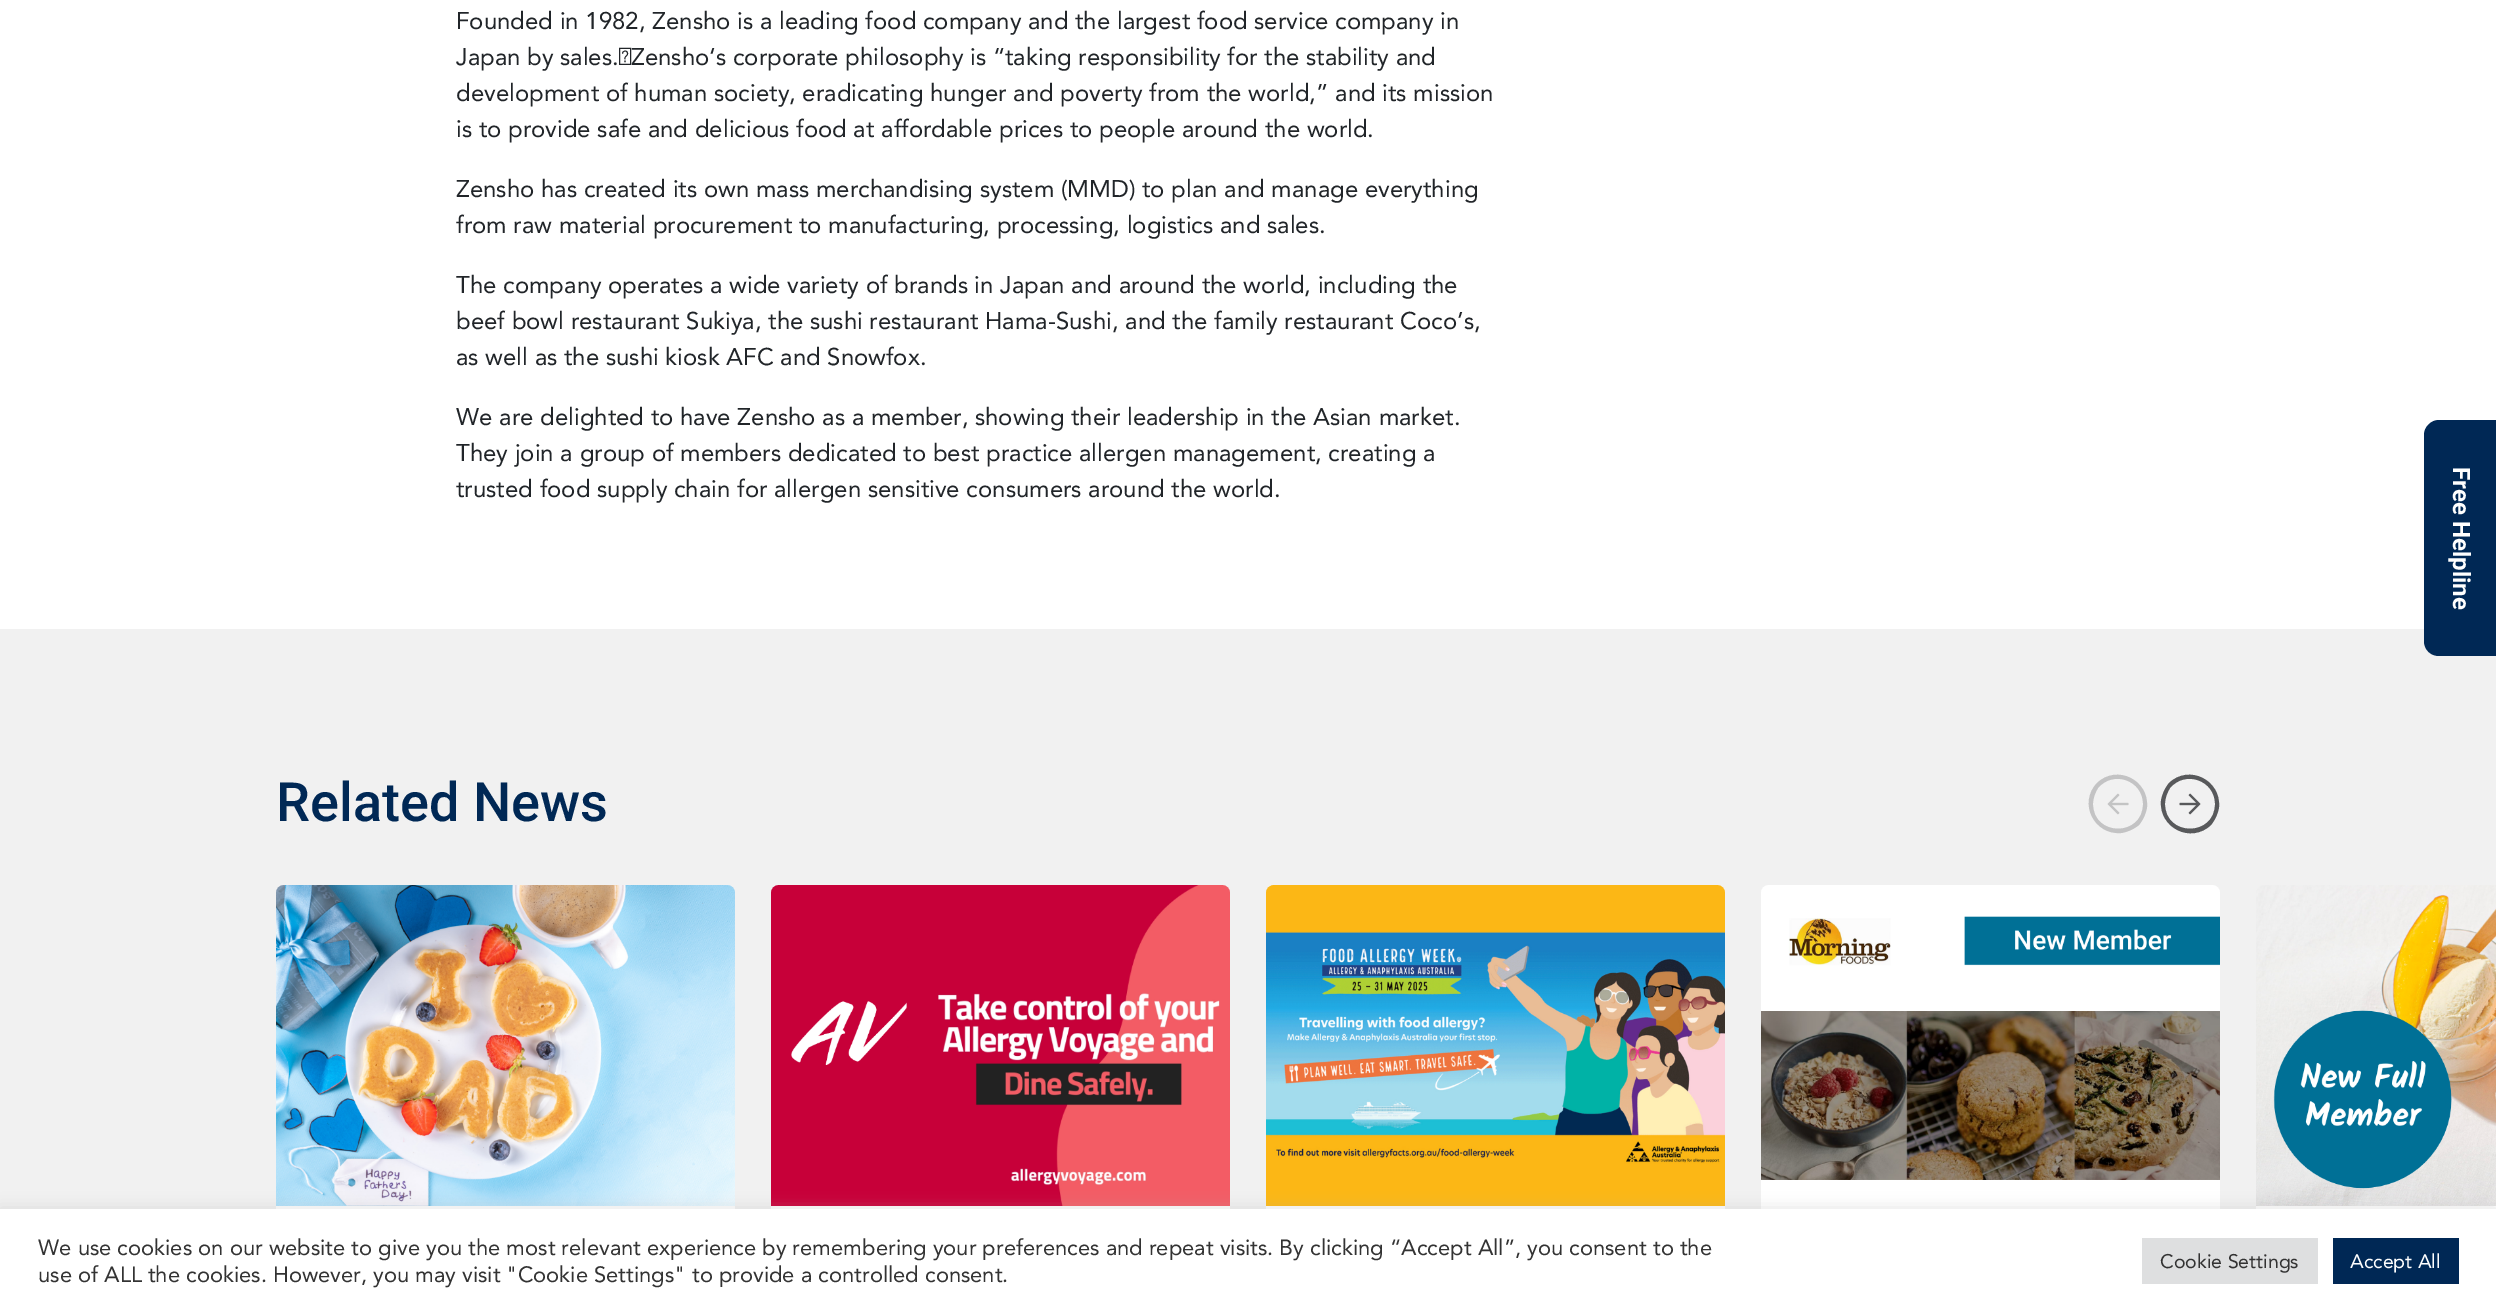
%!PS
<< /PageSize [2496 1312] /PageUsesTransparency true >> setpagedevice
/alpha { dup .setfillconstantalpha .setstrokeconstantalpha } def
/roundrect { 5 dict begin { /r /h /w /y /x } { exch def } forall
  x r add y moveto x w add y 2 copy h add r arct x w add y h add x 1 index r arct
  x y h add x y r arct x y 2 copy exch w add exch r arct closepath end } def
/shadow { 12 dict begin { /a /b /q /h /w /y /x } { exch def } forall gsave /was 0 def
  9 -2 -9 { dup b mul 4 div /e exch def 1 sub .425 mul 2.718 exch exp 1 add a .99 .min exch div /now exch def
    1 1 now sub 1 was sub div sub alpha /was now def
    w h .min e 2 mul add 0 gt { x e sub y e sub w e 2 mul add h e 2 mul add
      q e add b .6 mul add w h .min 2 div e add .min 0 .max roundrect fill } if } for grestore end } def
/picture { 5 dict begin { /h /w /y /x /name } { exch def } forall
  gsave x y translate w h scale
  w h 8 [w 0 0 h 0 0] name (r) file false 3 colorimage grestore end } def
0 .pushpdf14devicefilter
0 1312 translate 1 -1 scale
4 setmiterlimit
1 setgray
0 0 2496 1312 rectfill
/Avenir-Regular [24 0 0 -24 0 0] selectfont
0.129 0.145 0.161 setrgbcolor
456 29 moveto (Founded in 1982, Zensho is a leading food company and the largest food service company in) show
456 65 moveto (Japan by sales. Zensho‘s corporate philosophy is “taking responsibility for the stability and) show
456 101 moveto (development of human society, eradicating hunger and poverty from the world,” and its mission) show
456 137 moveto (is to provide safe and delicious food at affordable prices to people around the world.) show
456 197 moveto (Zensho has created its own mass merchandising system \(MMD\) to plan and manage everything) show
456 233 moveto (from raw material procurement to manufacturing, processing, logistics and sales.) show
456 293 moveto (The company operates a wide variety of brands in Japan and around the world, including the) show
456 329 moveto (beef bowl restaurant Sukiya, the sushi restaurant Hama-Sushi, and the family restaurant Coco’s,) show
456 365 moveto (as well as the sushi kiosk AFC and Snowfox.) show
456 425 moveto (We are delighted to have Zensho as a member, showing their leadership in the Asian market.) show
456 461 moveto (They join a group of members dedicated to best practice allergen management, creating a) show
456 497 moveto (trusted food supply chain for allergen sensitive consumers around the world.) show
0.945 setgray
0 629 2496 580 rectfill
/Roboto-Medium [54 0 0 -54 0 0] selectfont
0 0.157 0.333 setrgbcolor
276 821 moveto (Related News) show
0.765 0.765 0.769 setrgbcolor
newpath 2097 783 moveto 2117 764 2149 780 2147 807 curveto 2146 814 2143 820 2139 825 curveto 2134 829 2128 832 2121 833 curveto 2094 835 2078 803 2097 783 curveto closepath 2143 804 moveto 2143 780 2113 770 2098 788 curveto 2095 793 2093 798 2093 804 curveto 2093 837 2143 837 2143 804 curveto closepath fill
(img1.rgb) 2107 793 22 22 picture
0.345 0.349 0.357 setrgbcolor
newpath 2169 783 moveto 2189 764 2221 780 2219 807 curveto 2218 814 2215 820 2211 825 curveto 2191 844 2159 828 2161 801 curveto 2162 794 2165 788 2169 783 curveto closepath 2215 804 moveto 2215 780 2185 770 2170 788 curveto 2167 793 2165 798 2165 804 curveto 2165 837 2215 837 2215 804 curveto closepath fill
(img2.rgb) 2179 793 22 22 picture
(img3.rgb) 276 885 459 321 picture
1 setgray
276 1206 459 3 rectfill
(img4.rgb) 771 885 459 321 picture
771 1206 459 3 rectfill
(img5.rgb) 1266 885 459 321 picture
1266 1206 459 3 rectfill
(img6.rgb) 1761 885 459 321 picture
1761 1206 459 3 rectfill
(img7.rgb) 2256 885 240 321 picture
2256 1206 240 3 rectfill
0 0.157 0.333 setrgbcolor
newpath 2496 420 moveto 2496 656 lineto 2439 656 lineto 2431 656 2424 650 2424 641 curveto 2424 435 lineto 2424 427 2431 420 2439 420 curveto closepath fill
/Roboto-Bold [24 0 0 -24 0 0] selectfont
1 setgray
gsave 2453 467 translate 90 rotate 0 0 moveto (Free Helpline) show grestore
0.675 0.671 0.671 setrgbcolor
0 1208 2496 103 0 7.5 0.3 shadow
1 setgray
0 1209 2496 103 rectfill
/Avenir-Regular [22 0 0 -22 0 0] selectfont
0.2 setgray
38 1255 moveto (We use cookies on our website to give you the most relevant experience by remembering your preferences and repeat visits. By clicking “Accept All”, you consent to the) show
38 1282 moveto (use of ALL the cookies. However, you may visit "Cookie Settings" to provide a controlled consent.) show
0.871 0.875 0.878 setrgbcolor
2142 1238 176 46 rectfill
/Avenir-Regular [19.5 0 0 -19.5 0 0] selectfont
0.2 setgray
2160 1268 moveto (Cookie Settings) show
0 0.157 0.333 setrgbcolor
2333 1238 126 46 rectfill
1 setgray
2350 1268 moveto (Accept All) show
.poppdf14devicefilter showpage
